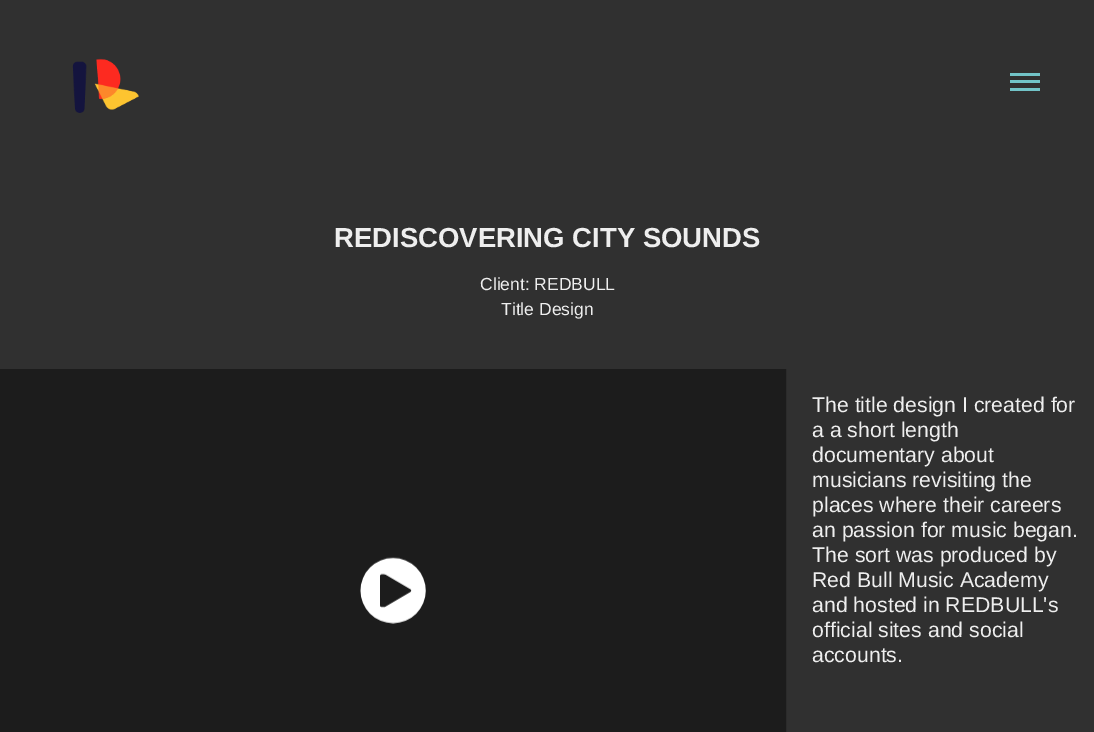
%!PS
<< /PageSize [1094 732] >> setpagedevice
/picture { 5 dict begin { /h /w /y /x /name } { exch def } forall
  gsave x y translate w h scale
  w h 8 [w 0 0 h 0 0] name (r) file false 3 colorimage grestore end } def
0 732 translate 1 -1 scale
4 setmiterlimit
0.188 setgray
0 0 1094 732 rectfill
(img1.rgb) 72 58 67 55 picture
0.447 0.765 0.78 setrgbcolor
1010 73 30 3 rectfill
1010 80 30 3 rectfill
1010 88 30 3 rectfill
/LiberationSans-Bold [27.5 0 0 -27.5 0 0] selectfont
0.933 setgray
334 247 moveto (REDISCOVERING CITY SOUNDS) show
/LiberationSans-Regular [17.5 0 0 -17.5 0 0] selectfont
480 290 moveto (Client: REDBULL) show
501 315 moveto (Title Design) show
(img2.rgb) 0 369 787 363 picture
/LiberationSans-Regular [21.25 0 0 -21.25 0 0] selectfont
812 412 moveto (The title design I created for) show
812 437 moveto (a a short length) show
812 462 moveto (documentary about) show
812 487 moveto (musicians revisiting the) show
812 512 moveto (places where their careers) show
812 537 moveto (an passion for music began.) show
812 562 moveto (The sort was produced by) show
812 587 moveto (Red Bull Music Academy) show
812 612 moveto (and hosted in REDBULL's) show
812 637 moveto (official sites and social) show
812 662 moveto (accounts.) show
showpage
